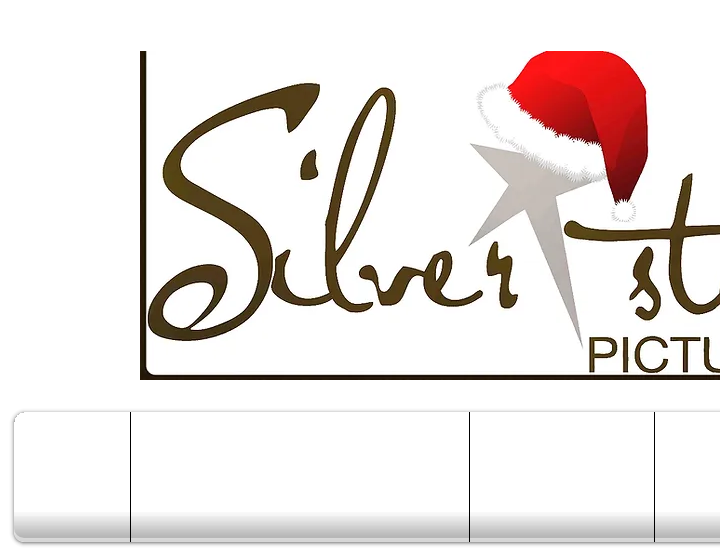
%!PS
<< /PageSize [720 559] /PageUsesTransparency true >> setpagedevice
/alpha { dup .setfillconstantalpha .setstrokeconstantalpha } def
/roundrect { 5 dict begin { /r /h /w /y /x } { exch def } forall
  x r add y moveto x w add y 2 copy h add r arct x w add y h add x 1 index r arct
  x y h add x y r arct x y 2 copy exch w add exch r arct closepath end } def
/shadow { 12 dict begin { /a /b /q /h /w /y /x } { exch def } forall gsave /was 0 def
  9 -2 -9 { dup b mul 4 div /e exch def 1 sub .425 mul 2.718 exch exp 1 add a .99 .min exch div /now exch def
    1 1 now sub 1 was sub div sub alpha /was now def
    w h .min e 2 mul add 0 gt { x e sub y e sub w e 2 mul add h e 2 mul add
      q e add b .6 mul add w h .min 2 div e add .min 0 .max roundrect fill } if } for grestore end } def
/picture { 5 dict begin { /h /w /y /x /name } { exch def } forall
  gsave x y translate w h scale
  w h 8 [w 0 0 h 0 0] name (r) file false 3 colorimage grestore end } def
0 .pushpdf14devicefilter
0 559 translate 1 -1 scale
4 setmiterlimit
1 setgray
0 0 720 559 rectfill
(img1.rgb) 140 51 580 329 picture
gsave
newpath 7 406 moveto 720 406 lineto 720 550 lineto 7 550 lineto closepath 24 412 moveto 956 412 lineto 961.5 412 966 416.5 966 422 curveto 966 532 lineto 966 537.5 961.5 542 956 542 curveto 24 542 lineto 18.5 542 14 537.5 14 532 curveto 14 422 lineto 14 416.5 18.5 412 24 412 curveto closepath eoclip newpath
0 setgray
14 413 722 130 10 2 0.6 shadow
grestore
(img2.rgb) 14 512 706 26 picture
(img3.rgb) 14 516 116 26 picture
0 setgray
130 412 1 130 rectfill
(img4.rgb) 131 516 338 26 picture
469 412 1 130 rectfill
(img5.rgb) 470 516 184 26 picture
654 412 1 130 rectfill
(img6.rgb) 655 516 65 26 picture
.poppdf14devicefilter showpage
